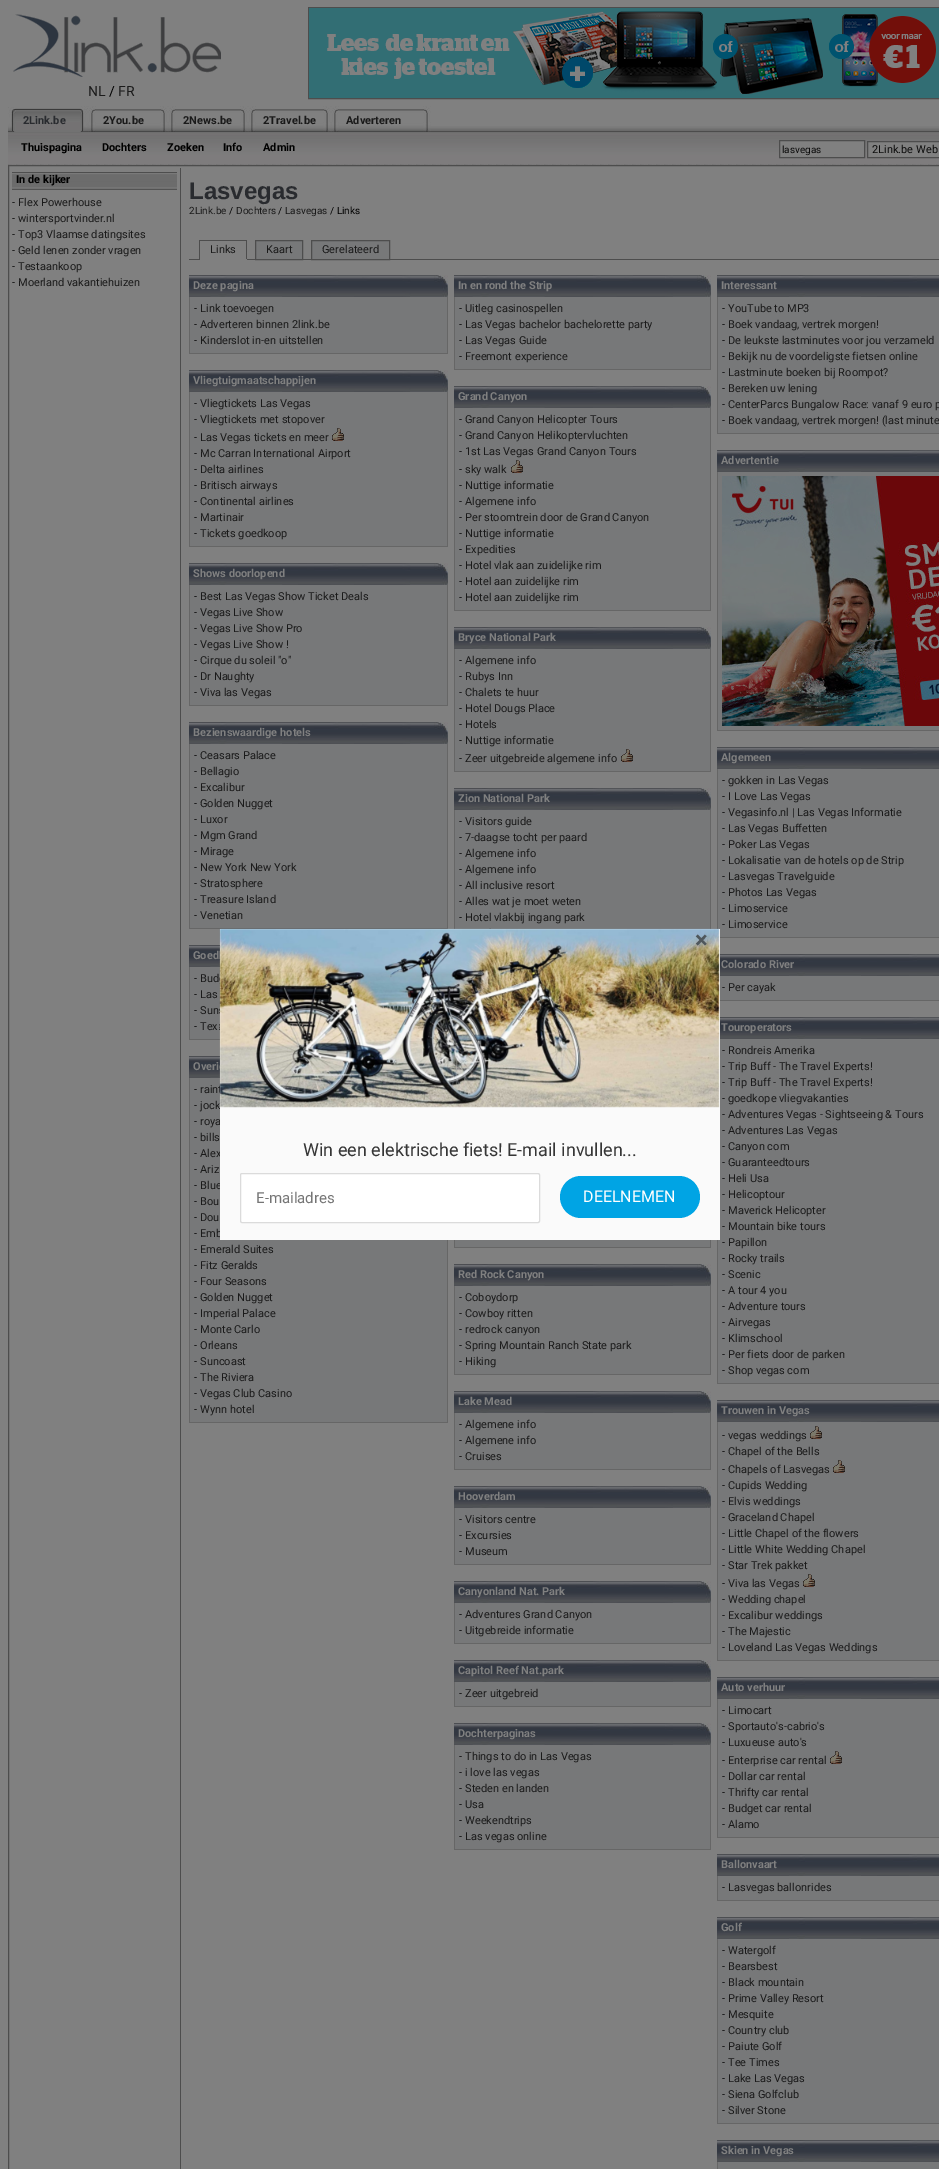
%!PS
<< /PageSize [939 2169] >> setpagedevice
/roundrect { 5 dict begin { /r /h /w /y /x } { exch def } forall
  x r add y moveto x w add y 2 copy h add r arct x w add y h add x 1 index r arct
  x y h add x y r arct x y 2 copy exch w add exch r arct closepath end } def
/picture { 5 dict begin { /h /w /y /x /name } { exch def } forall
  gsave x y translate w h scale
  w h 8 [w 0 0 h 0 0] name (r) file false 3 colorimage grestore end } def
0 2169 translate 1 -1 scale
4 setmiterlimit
0.502 setgray
0 0 939 2169 rectfill
(img1.rgb) 13 14 208 63 picture
/Roboto-Regular [14 0 0 -14 0 0] selectfont
0.102 setgray
88 96 moveto (NL) show
0 setgray
109 96 moveto (/) show
0.102 setgray
118 96 moveto (FR) show
0.302 setgray
308.5 7.5 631 91 rectstroke
(img2.rgb) 309 8 630 90 picture
(img3.rgb) 431 126 442 6 picture
(img4.rgb) 8 107 8 25 picture
(img5.rgb) 16 108 64 24 picture
/Roboto-Bold [11 0 0 -11 0 0] selectfont
0.161 0.169 0.184 setrgbcolor
23 124 moveto (2Link.be) show
(img6.rgb) 80 106 8 26 picture
(img7.rgb) 88 106 8 26 picture
(img8.rgb) 96 109 64 23 picture
0.102 setgray
103 124 moveto (2You.be) show
(img9.rgb) 160 106 8 26 picture
(img7.rgb) 168 106 8 26 picture
(img8.rgb) 176 109 64 23 picture
183 124 moveto (2News.be) show
(img9.rgb) 240 106 8 26 picture
(img7.rgb) 248 106 8 26 picture
(img10.rgb) 256 109 67 23 picture
263 124 moveto (2Travel.be) show
(img9.rgb) 323 106 8 26 picture
(img7.rgb) 331 106 8 26 picture
(img11.rgb) 339 109 84 23 picture
346 124 moveto (Adverteren) show
(img9.rgb) 423 106 8 26 picture
(img12.rgb) 873 126 66 6 picture
(img13.rgb) 8 132 931 33 picture
0 setgray
21 151 moveto (Thuispagina) show
102 151 moveto (Dochters) show
167 151 moveto (Zoeken) show
223 151 moveto (Info) show
263 151 moveto (Admin) show
0.502 setgray
newpath 779.5 140.5 moveto 864.5 140.5 lineto 864.5 157.5 lineto 779.5 157.5 lineto closepath gsave fill grestore
0.302 setgray
stroke
/Roboto-Regular [10 0 0 -10 0 0] selectfont
0.051 setgray
782 153 moveto (lasvegas) show
0.502 setgray
newpath 867.5 141.5 moveto 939.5 141.5 lineto 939.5 157.5 lineto 867.5 157.5 lineto closepath gsave fill grestore
0.302 setgray
stroke
/Roboto-Regular [11 0 0 -11 0 0] selectfont
0.051 setgray
872 153 moveto (2Link.be Web) show
0.302 setgray
8.5 165.5 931 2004 rectstroke
(img14.rgb) 12 172 165 18 picture
/Roboto-Bold [11 0 0 -11 0 0] selectfont
0 setgray
16 183 moveto (In de kijker) show
/Roboto-Regular [11 0 0 -11 0 0] selectfont
12 206 moveto (-) show
0.102 setgray
18 206 moveto (Flex Powerhouse) show
0 setgray
12 222 moveto (-) show
0.102 setgray
18 222 moveto (wintersportvinder.nl) show
0 setgray
12 238 moveto (-) show
0.102 setgray
18 238 moveto (Top3 Vlaamse datingsites) show
0 setgray
12 254 moveto (-) show
0.102 setgray
18 254 moveto (Geld lenen zonder vragen) show
0 setgray
12 270 moveto (-) show
0.102 setgray
18 270 moveto (Testaankoop) show
0 setgray
12 286 moveto (-) show
0.102 setgray
18 286 moveto (Moerland vakantiehuizen) show
0.302 setgray
180 168 1 2001 rectfill
/LiberationSans-Bold [24 0 0 -24 0 0] selectfont
0.161 0.169 0.184 setrgbcolor
189 199 moveto (Lasvegas) show
/Roboto-Regular [10 0 0 -10 0 0] selectfont
0.102 setgray
189 214 moveto (2Link.be) show
0 setgray
229 214 moveto (/) show
0.102 setgray
236 214 moveto (Dochters) show
0 setgray
278 214 moveto (/) show
0.102 setgray
285 214 moveto (Lasvegas) show
0 setgray
330 214 moveto (/ Links) show
0.302 setgray
189 259 750 1 rectfill
199 240 48 1 rectfill
246 240 1 20 rectfill
0.502 setgray
199 259 48 1 rectfill
0.302 setgray
199 240 1 20 rectfill
/Roboto-Regular [11 0 0 -11 0 0] selectfont
0.102 setgray
210 253 moveto (Links) show
0.467 0.471 0.475 setrgbcolor
newpath 255.5 240.5 moveto 302.5 240.5 lineto 302.5 259.5 lineto 255.5 259.5 lineto closepath gsave fill grestore
0.302 setgray
stroke
0.102 setgray
266 253 moveto (Kaart) show
0.467 0.471 0.475 setrgbcolor
newpath 311.5 240.5 moveto 389.5 240.5 lineto 389.5 259.5 lineto 311.5 259.5 lineto closepath gsave fill grestore
0.302 setgray
stroke
0.102 setgray
322 253 moveto (Gerelateerd) show
(img15.rgb) 189 275 259 22 picture
/Roboto-Bold [11 0 0 -11 0 0] selectfont
0.502 setgray
193 289 moveto (Deze pagina) show
0.467 0.471 0.475 setrgbcolor
190 297 257 56 rectfill
0.4 setgray
447 297 1 57 rectfill
189 353 259 1 rectfill
189 297 1 57 rectfill
/Roboto-Regular [11 0 0 -11 0 0] selectfont
0 setgray
194 312 moveto (-) show
0.102 setgray
200 312 moveto (Link toevoegen) show
0 setgray
194 328 moveto (-) show
0.102 setgray
200 328 moveto (Adverteren binnen 2link.be) show
0 setgray
194 344 moveto (-) show
0.102 setgray
200 344 moveto (Kinderslot in-en uitstellen) show
(img15.rgb) 189 370 259 22 picture
/Roboto-Bold [11 0 0 -11 0 0] selectfont
0.502 setgray
193 384 moveto (Vliegtuigmaatschappijen) show
0.467 0.471 0.475 setrgbcolor
190 392 257 154 rectfill
0.4 setgray
447 392 1 155 rectfill
189 546 259 1 rectfill
189 392 1 155 rectfill
/Roboto-Regular [11 0 0 -11 0 0] selectfont
0 setgray
194 407 moveto (-) show
0.102 setgray
200 407 moveto (Vliegtickets Las Vegas) show
0 setgray
194 423 moveto (-) show
0.102 setgray
200 423 moveto (Vliegtickets met stopover) show
0 setgray
194 441 moveto (-) show
0.102 setgray
200 441 moveto (Las Vegas tickets en meer) show
(img16.rgb) 332 428 12 13 picture
0 setgray
194 457 moveto (-) show
0.102 setgray
200 457 moveto (Mc Carran International Airport) show
0 setgray
194 473 moveto (-) show
0.102 setgray
200 473 moveto (Delta airlines) show
0 setgray
194 489 moveto (-) show
0.102 setgray
200 489 moveto (Britisch airways) show
0 setgray
194 505 moveto (-) show
0.102 setgray
200 505 moveto (Continental airlines) show
0 setgray
194 521 moveto (-) show
0.102 setgray
200 521 moveto (Martinair) show
0 setgray
194 537 moveto (-) show
0.102 setgray
200 537 moveto (Tickets goedkoop) show
(img15.rgb) 189 563 259 22 picture
/Roboto-Bold [11 0 0 -11 0 0] selectfont
0.502 setgray
193 577 moveto (Shows doorlopend) show
0.467 0.471 0.475 setrgbcolor
190 585 257 120 rectfill
0.4 setgray
447 585 1 121 rectfill
189 705 259 1 rectfill
189 585 1 121 rectfill
/Roboto-Regular [11 0 0 -11 0 0] selectfont
0 setgray
194 600 moveto (-) show
0.102 setgray
200 600 moveto (Best Las Vegas Show Ticket Deals) show
0 setgray
194 616 moveto (-) show
0.102 setgray
200 616 moveto (Vegas Live Show) show
0 setgray
194 632 moveto (-) show
0.102 setgray
200 632 moveto (Vegas Live Show Pro) show
0 setgray
194 648 moveto (-) show
0.102 setgray
200 648 moveto (Vegas Live Show !) show
0 setgray
194 664 moveto (-) show
0.102 setgray
200 664 moveto (Cirque du soleil "o") show
0 setgray
194 680 moveto (-) show
0.102 setgray
200 680 moveto (Dr Naughty) show
0 setgray
194 696 moveto (-) show
0.102 setgray
200 696 moveto (Viva las Vegas) show
(img15.rgb) 189 722 259 22 picture
/Roboto-Bold [11 0 0 -11 0 0] selectfont
0.502 setgray
193 736 moveto (Bezienswaardige hotels) show
0.467 0.471 0.475 setrgbcolor
190 744 257 184 rectfill
0.4 setgray
447 744 1 185 rectfill
189 928 259 1 rectfill
189 744 1 185 rectfill
/Roboto-Regular [11 0 0 -11 0 0] selectfont
0 setgray
194 759 moveto (-) show
0.102 setgray
200 759 moveto (Ceasars Palace) show
0 setgray
194 775 moveto (-) show
0.102 setgray
200 775 moveto (Bellagio) show
0 setgray
194 791 moveto (-) show
0.102 setgray
200 791 moveto (Excalibur) show
0 setgray
194 807 moveto (-) show
0.102 setgray
200 807 moveto (Golden Nugget) show
0 setgray
194 823 moveto (-) show
0.102 setgray
200 823 moveto (Luxor) show
0 setgray
194 839 moveto (-) show
0.102 setgray
200 839 moveto (Mgm Grand) show
0 setgray
194 855 moveto (-) show
0.102 setgray
200 855 moveto (Mirage) show
0 setgray
194 871 moveto (-) show
0.102 setgray
200 871 moveto (New York New York) show
0 setgray
194 887 moveto (-) show
0.102 setgray
200 887 moveto (Stratosphere) show
0 setgray
194 903 moveto (-) show
0.102 setgray
200 903 moveto (Treasure Island) show
0 setgray
194 919 moveto (-) show
0.102 setgray
200 919 moveto (Venetian) show
(img17.rgb) 189 945 31 22 picture
/Roboto-Bold [11 0 0 -11 0 0] selectfont
0.502 setgray
193 959 moveto (Goed) show
0.467 0.471 0.475 setrgbcolor
190 967 30 72 rectfill
0.4 setgray
189 1039 31 1 rectfill
189 967 1 73 rectfill
/Roboto-Regular [11 0 0 -11 0 0] selectfont
0 setgray
194 982 moveto (-) show
0.102 setgray
200 982 moveto (Bud) show
0 setgray
194 998 moveto (-) show
0.102 setgray
200 998 moveto (Las) show
0 setgray
194 1014 moveto (-) show
0.102 setgray
200 1014 moveto (Sun) show
0 setgray
194 1030 moveto (-) show
0.102 setgray
200 1030 moveto (Tex) show
(img17.rgb) 189 1056 31 22 picture
/Roboto-Bold [11 0 0 -11 0 0] selectfont
0.502 setgray
193 1070 moveto (Overi) show
0.467 0.471 0.475 setrgbcolor
190 1078 257 344 rectfill
0.4 setgray
447 1240 1 183 rectfill
189 1422 259 1 rectfill
189 1078 1 345 rectfill
/Roboto-Regular [11 0 0 -11 0 0] selectfont
0 setgray
194 1093 moveto (-) show
0.102 setgray
200 1093 moveto (raint) show
0 setgray
194 1109 moveto (-) show
0.102 setgray
200 1109 moveto (jock) show
0 setgray
194 1125 moveto (-) show
0.102 setgray
200 1125 moveto (roya) show
0 setgray
194 1141 moveto (-) show
0.102 setgray
200 1141 moveto (bills) show
0 setgray
194 1157 moveto (-) show
0.102 setgray
200 1157 moveto (Alex) show
0 setgray
194 1173 moveto (-) show
0.102 setgray
200 1173 moveto (Ariz) show
0 setgray
194 1189 moveto (-) show
0.102 setgray
200 1189 moveto (Blue) show
0 setgray
194 1205 moveto (-) show
0.102 setgray
200 1205 moveto (Bou) show
0 setgray
194 1221 moveto (-) show
0.102 setgray
200 1221 moveto (Dou) show
0 setgray
194 1237 moveto (-) show
0.102 setgray
200 1237 moveto (Emb) show
0 setgray
194 1253 moveto (-) show
0.102 setgray
200 1253 moveto (Emerald Suites) show
0 setgray
194 1269 moveto (-) show
0.102 setgray
200 1269 moveto (Fitz Geralds) show
0 setgray
194 1285 moveto (-) show
0.102 setgray
200 1285 moveto (Four Seasons) show
0 setgray
194 1301 moveto (-) show
0.102 setgray
200 1301 moveto (Golden Nugget) show
0 setgray
194 1317 moveto (-) show
0.102 setgray
200 1317 moveto (Imperial Palace) show
0 setgray
194 1333 moveto (-) show
0.102 setgray
200 1333 moveto (Monte Carlo) show
0 setgray
194 1349 moveto (-) show
0.102 setgray
200 1349 moveto (Orleans) show
0 setgray
194 1365 moveto (-) show
0.102 setgray
200 1365 moveto (Suncoast) show
0 setgray
194 1381 moveto (-) show
0.102 setgray
200 1381 moveto (The Riviera) show
0 setgray
194 1397 moveto (-) show
0.102 setgray
200 1397 moveto (Vegas Club Casino) show
0 setgray
194 1413 moveto (-) show
0.102 setgray
200 1413 moveto (Wynn hotel) show
(img18.rgb) 454 275 257 22 picture
/Roboto-Bold [11 0 0 -11 0 0] selectfont
0.502 setgray
458 289 moveto (In en rond the Strip) show
0.467 0.471 0.475 setrgbcolor
455 297 255 72 rectfill
0.4 setgray
710 297 1 73 rectfill
454 369 257 1 rectfill
454 297 1 73 rectfill
/Roboto-Regular [11 0 0 -11 0 0] selectfont
0 setgray
459 312 moveto (-) show
0.102 setgray
465 312 moveto (Uitleg casinospellen) show
0 setgray
459 328 moveto (-) show
0.102 setgray
465 328 moveto (Las Vegas bachelor bachelorette party) show
0 setgray
459 344 moveto (-) show
0.102 setgray
465 344 moveto (Las Vegas Guide) show
0 setgray
459 360 moveto (-) show
0.102 setgray
465 360 moveto (Freemont experience) show
(img18.rgb) 454 386 257 22 picture
/Roboto-Bold [11 0 0 -11 0 0] selectfont
0.502 setgray
458 400 moveto (Grand Canyon) show
0.467 0.471 0.475 setrgbcolor
455 408 255 202 rectfill
0.4 setgray
710 408 1 203 rectfill
454 610 257 1 rectfill
454 408 1 203 rectfill
/Roboto-Regular [11 0 0 -11 0 0] selectfont
0 setgray
459 423 moveto (-) show
0.102 setgray
465 423 moveto (Grand Canyon Helicopter Tours) show
0 setgray
459 439 moveto (-) show
0.102 setgray
465 439 moveto (Grand Canyon Helikoptervluchten) show
0 setgray
459 455 moveto (-) show
0.102 setgray
465 455 moveto (1st Las Vegas Grand Canyon Tours) show
0 setgray
459 473 moveto (-) show
0.102 setgray
465 473 moveto (sky walk) show
(img16.rgb) 511 460 12 13 picture
0 setgray
459 489 moveto (-) show
0.102 setgray
465 489 moveto (Nuttige informatie) show
0 setgray
459 505 moveto (-) show
0.102 setgray
465 505 moveto (Algemene info) show
0 setgray
459 521 moveto (-) show
0.102 setgray
465 521 moveto (Per stoomtrein door de Grand Canyon) show
0 setgray
459 537 moveto (-) show
0.102 setgray
465 537 moveto (Nuttige informatie) show
0 setgray
459 553 moveto (-) show
0.102 setgray
465 553 moveto (Expedities) show
0 setgray
459 569 moveto (-) show
0.102 setgray
465 569 moveto (Hotel vlak aan zuidelijke rim) show
0 setgray
459 585 moveto (-) show
0.102 setgray
465 585 moveto (Hotel aan zuidelijke rim) show
0 setgray
459 601 moveto (-) show
0.102 setgray
465 601 moveto (Hotel aan zuidelijke rim) show
(img18.rgb) 454 627 257 22 picture
/Roboto-Bold [11 0 0 -11 0 0] selectfont
0.502 setgray
458 641 moveto (Bryce National Park) show
0.467 0.471 0.475 setrgbcolor
455 649 255 122 rectfill
0.4 setgray
710 649 1 123 rectfill
454 771 257 1 rectfill
454 649 1 123 rectfill
/Roboto-Regular [11 0 0 -11 0 0] selectfont
0 setgray
459 664 moveto (-) show
0.102 setgray
465 664 moveto (Algemene info) show
0 setgray
459 680 moveto (-) show
0.102 setgray
465 680 moveto (Rubys Inn) show
0 setgray
459 696 moveto (-) show
0.102 setgray
465 696 moveto (Chalets te huur) show
0 setgray
459 712 moveto (-) show
0.102 setgray
465 712 moveto (Hotel Dougs Place) show
0 setgray
459 728 moveto (-) show
0.102 setgray
465 728 moveto (Hotels) show
0 setgray
459 744 moveto (-) show
0.102 setgray
465 744 moveto (Nuttige informatie) show
0 setgray
459 762 moveto (-) show
0.102 setgray
465 762 moveto (Zeer uitgebreide algemene info) show
(img16.rgb) 621 749 12 13 picture
(img18.rgb) 454 788 257 22 picture
/Roboto-Bold [11 0 0 -11 0 0] selectfont
0.502 setgray
458 802 moveto (Zion National Park) show
0.467 0.471 0.475 setrgbcolor
455 810 255 119 rectfill
0.4 setgray
710 810 1 119 rectfill
454 810 1 119 rectfill
/Roboto-Regular [11 0 0 -11 0 0] selectfont
0 setgray
459 825 moveto (-) show
0.102 setgray
465 825 moveto (Visitors guide) show
0 setgray
459 841 moveto (-) show
0.102 setgray
465 841 moveto (7-daagse tocht per paard) show
0 setgray
459 857 moveto (-) show
0.102 setgray
465 857 moveto (Algemene info) show
0 setgray
459 873 moveto (-) show
0.102 setgray
465 873 moveto (Algemene info) show
0 setgray
459 889 moveto (-) show
0.102 setgray
465 889 moveto (All inclusive resort) show
0 setgray
459 905 moveto (-) show
0.102 setgray
465 905 moveto (Alles wat je moet weten) show
0 setgray
459 921 moveto (-) show
0.102 setgray
465 921 moveto (Hotel vlakbij ingang park) show
0.467 0.471 0.475 setrgbcolor
455 1240 255 7 rectfill
0.4 setgray
710 1240 1 8 rectfill
454 1247 257 1 rectfill
454 1240 1 8 rectfill
(img18.rgb) 454 1264 257 22 picture
/Roboto-Bold [11 0 0 -11 0 0] selectfont
0.502 setgray
458 1278 moveto (Red Rock Canyon) show
0.467 0.471 0.475 setrgbcolor
455 1286 255 88 rectfill
0.4 setgray
710 1286 1 89 rectfill
454 1374 257 1 rectfill
454 1286 1 89 rectfill
/Roboto-Regular [11 0 0 -11 0 0] selectfont
0 setgray
459 1301 moveto (-) show
0.102 setgray
465 1301 moveto (Coboydorp) show
0 setgray
459 1317 moveto (-) show
0.102 setgray
465 1317 moveto (Cowboy ritten) show
0 setgray
459 1333 moveto (-) show
0.102 setgray
465 1333 moveto (redrock canyon) show
0 setgray
459 1349 moveto (-) show
0.102 setgray
465 1349 moveto (Spring Mountain Ranch State park) show
0 setgray
459 1365 moveto (-) show
0.102 setgray
465 1365 moveto (Hiking) show
(img18.rgb) 454 1391 257 22 picture
/Roboto-Bold [11 0 0 -11 0 0] selectfont
0.502 setgray
458 1405 moveto (Lake Mead) show
0.467 0.471 0.475 setrgbcolor
455 1413 255 56 rectfill
0.4 setgray
710 1413 1 57 rectfill
454 1469 257 1 rectfill
454 1413 1 57 rectfill
/Roboto-Regular [11 0 0 -11 0 0] selectfont
0 setgray
459 1428 moveto (-) show
0.102 setgray
465 1428 moveto (Algemene info) show
0 setgray
459 1444 moveto (-) show
0.102 setgray
465 1444 moveto (Algemene info) show
0 setgray
459 1460 moveto (-) show
0.102 setgray
465 1460 moveto (Cruises) show
(img18.rgb) 454 1486 257 22 picture
/Roboto-Bold [11 0 0 -11 0 0] selectfont
0.502 setgray
458 1500 moveto (Hooverdam) show
0.467 0.471 0.475 setrgbcolor
455 1508 255 56 rectfill
0.4 setgray
710 1508 1 57 rectfill
454 1564 257 1 rectfill
454 1508 1 57 rectfill
/Roboto-Regular [11 0 0 -11 0 0] selectfont
0 setgray
459 1523 moveto (-) show
0.102 setgray
465 1523 moveto (Visitors centre) show
0 setgray
459 1539 moveto (-) show
0.102 setgray
465 1539 moveto (Excursies) show
0 setgray
459 1555 moveto (-) show
0.102 setgray
465 1555 moveto (Museum) show
(img18.rgb) 454 1581 257 22 picture
/Roboto-Bold [11 0 0 -11 0 0] selectfont
0.502 setgray
458 1595 moveto (Canyonland Nat. Park) show
0.467 0.471 0.475 setrgbcolor
455 1603 255 40 rectfill
0.4 setgray
710 1603 1 41 rectfill
454 1643 257 1 rectfill
454 1603 1 41 rectfill
/Roboto-Regular [11 0 0 -11 0 0] selectfont
0 setgray
459 1618 moveto (-) show
0.102 setgray
465 1618 moveto (Adventures Grand Canyon) show
0 setgray
459 1634 moveto (-) show
0.102 setgray
465 1634 moveto (Uitgebreide informatie) show
(img18.rgb) 454 1660 257 22 picture
/Roboto-Bold [11 0 0 -11 0 0] selectfont
0.502 setgray
458 1674 moveto (Capitol Reef Nat.park) show
0.467 0.471 0.475 setrgbcolor
455 1682 255 24 rectfill
0.4 setgray
710 1682 1 25 rectfill
454 1706 257 1 rectfill
454 1682 1 25 rectfill
/Roboto-Regular [11 0 0 -11 0 0] selectfont
0 setgray
459 1697 moveto (-) show
0.102 setgray
465 1697 moveto (Zeer uitgebreid) show
(img18.rgb) 454 1723 257 22 picture
/Roboto-Bold [11 0 0 -11 0 0] selectfont
0.502 setgray
458 1737 moveto (Dochterpaginas) show
0.467 0.471 0.475 setrgbcolor
455 1745 255 104 rectfill
0.4 setgray
710 1745 1 105 rectfill
454 1849 257 1 rectfill
454 1745 1 105 rectfill
/Roboto-Regular [11 0 0 -11 0 0] selectfont
0 setgray
459 1760 moveto (-) show
0.102 setgray
465 1760 moveto (Things to do in Las Vegas) show
0 setgray
459 1776 moveto (-) show
0.102 setgray
465 1776 moveto (i love las vegas) show
0 setgray
459 1792 moveto (-) show
0.102 setgray
465 1792 moveto (Steden en landen) show
0 setgray
459 1808 moveto (-) show
0.102 setgray
465 1808 moveto (Usa) show
0 setgray
459 1824 moveto (-) show
0.102 setgray
465 1824 moveto (Weekendtrips) show
0 setgray
459 1840 moveto (-) show
0.102 setgray
465 1840 moveto (Las vegas online) show
(img19.rgb) 717 275 222 22 picture
/Roboto-Bold [11 0 0 -11 0 0] selectfont
0.502 setgray
721 289 moveto (Interessant) show
0.467 0.471 0.475 setrgbcolor
718 297 221 136 rectfill
0.4 setgray
717 433 222 1 rectfill
717 297 1 137 rectfill
/Roboto-Regular [11 0 0 -11 0 0] selectfont
0 setgray
722 312 moveto (-) show
0.102 setgray
728 312 moveto (YouTube to MP3) show
0 setgray
722 328 moveto (-) show
0.102 setgray
728 328 moveto (Boek vandaag, vertrek morgen!) show
0 setgray
722 344 moveto (-) show
0.102 setgray
728 344 moveto (De leukste lastminutes voor jou verzameld) show
0 setgray
722 360 moveto (-) show
0.102 setgray
728 360 moveto (Bekijk nu de voordeligste fietsen online) show
0 setgray
722 376 moveto (-) show
0.102 setgray
728 376 moveto (Lastminute boeken bij Roompot?) show
0 setgray
722 392 moveto (-) show
0.102 setgray
728 392 moveto (Bereken uw lening) show
0 setgray
722 408 moveto (-) show
0.102 setgray
728 408 moveto (CenterParcs Bungalow Race: vanaf 9 euro p) show
0 setgray
722 424 moveto (-) show
0.102 setgray
728 424 moveto (Boek vandaag, vertrek morgen! \(last minute) show
(img19.rgb) 717 450 222 22 picture
/Roboto-Bold [11 0 0 -11 0 0] selectfont
0.502 setgray
721 464 moveto (Advertentie) show
0.467 0.471 0.475 setrgbcolor
718 472 221 258 rectfill
0.4 setgray
717 730 222 1 rectfill
717 472 1 259 rectfill
(img20.rgb) 722 476 217 250 picture
(img19.rgb) 717 747 222 22 picture
0.502 setgray
721 761 moveto (Algemeen) show
0.467 0.471 0.475 setrgbcolor
718 769 221 168 rectfill
0.4 setgray
717 937 222 1 rectfill
717 769 1 160 rectfill
/Roboto-Regular [11 0 0 -11 0 0] selectfont
0 setgray
722 784 moveto (-) show
0.102 setgray
728 784 moveto (gokken in Las Vegas) show
0 setgray
722 800 moveto (-) show
0.102 setgray
728 800 moveto (I Love Las Vegas) show
0 setgray
722 816 moveto (-) show
0.102 setgray
728 816 moveto (Vegasinfo.nl | Las Vegas Informatie) show
0 setgray
722 832 moveto (-) show
0.102 setgray
728 832 moveto (Las Vegas Buffetten) show
0 setgray
722 848 moveto (-) show
0.102 setgray
728 848 moveto (Poker Las Vegas) show
0 setgray
722 864 moveto (-) show
0.102 setgray
728 864 moveto (Lokalisatie van de hotels op de Strip) show
0 setgray
722 880 moveto (-) show
0.102 setgray
728 880 moveto (Lasvegas Travelguide) show
0 setgray
722 896 moveto (-) show
0.102 setgray
728 896 moveto (Photos Las Vegas) show
0 setgray
722 912 moveto (-) show
0.102 setgray
728 912 moveto (Limoservice) show
0 setgray
722 928 moveto (-) show
0.102 setgray
728 928 moveto (Limoservice) show
(img21.rgb) 720 954 219 22 picture
/Roboto-Bold [11 0 0 -11 0 0] selectfont
0.502 setgray
721 968 moveto (Colorado River) show
0.467 0.471 0.475 setrgbcolor
720 976 219 24 rectfill
0.4 setgray
717 1000 222 1 rectfill
/Roboto-Regular [11 0 0 -11 0 0] selectfont
0 setgray
722 991 moveto (-) show
0.102 setgray
728 991 moveto (Per cayak) show
(img21.rgb) 720 1017 219 22 picture
/Roboto-Bold [11 0 0 -11 0 0] selectfont
0.502 setgray
721 1031 moveto (Touroperators) show
0.467 0.471 0.475 setrgbcolor
718 1039 221 344 rectfill
0.4 setgray
717 1383 222 1 rectfill
717 1240 1 144 rectfill
/Roboto-Regular [11 0 0 -11 0 0] selectfont
0 setgray
722 1054 moveto (-) show
0.102 setgray
728 1054 moveto (Rondreis Amerika) show
0 setgray
722 1070 moveto (-) show
0.102 setgray
728 1070 moveto (Trip Buff - The Travel Experts!) show
0 setgray
722 1086 moveto (-) show
0.102 setgray
728 1086 moveto (Trip Buff - The Travel Experts!) show
0 setgray
722 1102 moveto (-) show
0.102 setgray
728 1102 moveto (goedkope vliegvakanties) show
0 setgray
722 1118 moveto (-) show
0.102 setgray
728 1118 moveto (Adventures Vegas - Sightseeing & Tours) show
0 setgray
722 1134 moveto (-) show
0.102 setgray
728 1134 moveto (Adventures Las Vegas) show
0 setgray
722 1150 moveto (-) show
0.102 setgray
728 1150 moveto (Canyon com) show
0 setgray
722 1166 moveto (-) show
0.102 setgray
728 1166 moveto (Guaranteedtours) show
0 setgray
722 1182 moveto (-) show
0.102 setgray
728 1182 moveto (Heli Usa) show
0 setgray
722 1198 moveto (-) show
0.102 setgray
728 1198 moveto (Helicoptour) show
0 setgray
722 1214 moveto (-) show
0.102 setgray
728 1214 moveto (Maverick Helicopter) show
0 setgray
722 1230 moveto (-) show
0.102 setgray
728 1230 moveto (Mountain bike tours) show
0 setgray
722 1246 moveto (-) show
0.102 setgray
728 1246 moveto (Papillon) show
0 setgray
722 1262 moveto (-) show
0.102 setgray
728 1262 moveto (Rocky trails) show
0 setgray
722 1278 moveto (-) show
0.102 setgray
728 1278 moveto (Scenic) show
0 setgray
722 1294 moveto (-) show
0.102 setgray
728 1294 moveto (A tour 4 you) show
0 setgray
722 1310 moveto (-) show
0.102 setgray
728 1310 moveto (Adventure tours) show
0 setgray
722 1326 moveto (-) show
0.102 setgray
728 1326 moveto (Airvegas) show
0 setgray
722 1342 moveto (-) show
0.102 setgray
728 1342 moveto (Klimschool) show
0 setgray
722 1358 moveto (-) show
0.102 setgray
728 1358 moveto (Per fiets door de parken) show
0 setgray
722 1374 moveto (-) show
0.102 setgray
728 1374 moveto (Shop vegas com) show
(img19.rgb) 717 1400 222 22 picture
/Roboto-Bold [11 0 0 -11 0 0] selectfont
0.502 setgray
721 1414 moveto (Trouwen in Vegas) show
0.467 0.471 0.475 setrgbcolor
718 1422 221 238 rectfill
0.4 setgray
717 1660 222 1 rectfill
717 1422 1 239 rectfill
/Roboto-Regular [11 0 0 -11 0 0] selectfont
0 setgray
722 1439 moveto (-) show
0.102 setgray
728 1439 moveto (vegas weddings) show
(img16.rgb) 810 1426 12 13 picture
0 setgray
722 1455 moveto (-) show
0.102 setgray
728 1455 moveto (Chapel of the Bells) show
0 setgray
722 1473 moveto (-) show
0.102 setgray
728 1473 moveto (Chapels of Lasvegas) show
(img16.rgb) 833 1460 12 13 picture
0 setgray
722 1489 moveto (-) show
0.102 setgray
728 1489 moveto (Cupids Wedding) show
0 setgray
722 1505 moveto (-) show
0.102 setgray
728 1505 moveto (Elvis weddings) show
0 setgray
722 1521 moveto (-) show
0.102 setgray
728 1521 moveto (Graceland Chapel) show
0 setgray
722 1537 moveto (-) show
0.102 setgray
728 1537 moveto (Little Chapel of the flowers) show
0 setgray
722 1553 moveto (-) show
0.102 setgray
728 1553 moveto (Little White Wedding Chapel) show
0 setgray
722 1569 moveto (-) show
0.102 setgray
728 1569 moveto (Star Trek pakket) show
0 setgray
722 1587 moveto (-) show
0.102 setgray
728 1587 moveto (Viva las Vegas) show
(img16.rgb) 803 1574 12 13 picture
0 setgray
722 1603 moveto (-) show
0.102 setgray
728 1603 moveto (Wedding chapel) show
0 setgray
722 1619 moveto (-) show
0.102 setgray
728 1619 moveto (Excalibur weddings) show
0 setgray
722 1635 moveto (-) show
0.102 setgray
728 1635 moveto (The Majestic) show
0 setgray
722 1651 moveto (-) show
0.102 setgray
728 1651 moveto (Loveland Las Vegas Weddings) show
(img19.rgb) 717 1677 222 22 picture
/Roboto-Bold [11 0 0 -11 0 0] selectfont
0.502 setgray
721 1691 moveto (Auto verhuur) show
0.467 0.471 0.475 setrgbcolor
718 1699 221 138 rectfill
0.4 setgray
717 1837 222 1 rectfill
717 1699 1 139 rectfill
/Roboto-Regular [11 0 0 -11 0 0] selectfont
0 setgray
722 1714 moveto (-) show
0.102 setgray
728 1714 moveto (Limocart) show
0 setgray
722 1730 moveto (-) show
0.102 setgray
728 1730 moveto (Sportauto's-cabrio's) show
0 setgray
722 1746 moveto (-) show
0.102 setgray
728 1746 moveto (Luxueuse auto's) show
0 setgray
722 1764 moveto (-) show
0.102 setgray
728 1764 moveto (Enterprise car rental) show
(img16.rgb) 830 1751 12 13 picture
0 setgray
722 1780 moveto (-) show
0.102 setgray
728 1780 moveto (Dollar car rental) show
0 setgray
722 1796 moveto (-) show
0.102 setgray
728 1796 moveto (Thrifty car rental) show
0 setgray
722 1812 moveto (-) show
0.102 setgray
728 1812 moveto (Budget car rental) show
0 setgray
722 1828 moveto (-) show
0.102 setgray
728 1828 moveto (Alamo) show
(img19.rgb) 717 1854 222 22 picture
/Roboto-Bold [11 0 0 -11 0 0] selectfont
0.502 setgray
721 1868 moveto (Ballonvaart) show
0.467 0.471 0.475 setrgbcolor
718 1876 221 24 rectfill
0.4 setgray
717 1900 222 1 rectfill
717 1876 1 25 rectfill
/Roboto-Regular [11 0 0 -11 0 0] selectfont
0 setgray
722 1891 moveto (-) show
0.102 setgray
728 1891 moveto (Lasvegas ballonrides) show
(img19.rgb) 717 1917 222 22 picture
/Roboto-Bold [11 0 0 -11 0 0] selectfont
0.502 setgray
721 1931 moveto (Golf) show
0.467 0.471 0.475 setrgbcolor
718 1939 221 184 rectfill
0.4 setgray
717 2123 222 1 rectfill
717 1939 1 185 rectfill
/Roboto-Regular [11 0 0 -11 0 0] selectfont
0 setgray
722 1954 moveto (-) show
0.102 setgray
728 1954 moveto (Watergolf) show
0 setgray
722 1970 moveto (-) show
0.102 setgray
728 1970 moveto (Bearsbest) show
0 setgray
722 1986 moveto (-) show
0.102 setgray
728 1986 moveto (Black mountain) show
0 setgray
722 2002 moveto (-) show
0.102 setgray
728 2002 moveto (Prime Valley Resort) show
0 setgray
722 2018 moveto (-) show
0.102 setgray
728 2018 moveto (Mesquite) show
0 setgray
722 2034 moveto (-) show
0.102 setgray
728 2034 moveto (Country club) show
0 setgray
722 2050 moveto (-) show
0.102 setgray
728 2050 moveto (Paiute Golf) show
0 setgray
722 2066 moveto (-) show
0.102 setgray
728 2066 moveto (Tee Times) show
0 setgray
722 2082 moveto (-) show
0.102 setgray
728 2082 moveto (Lake Las Vegas) show
0 setgray
722 2098 moveto (-) show
0.102 setgray
728 2098 moveto (Siena Golfclub) show
0 setgray
722 2114 moveto (-) show
0.102 setgray
728 2114 moveto (Silver Stone) show
(img19.rgb) 717 2140 222 22 picture
/Roboto-Bold [11 0 0 -11 0 0] selectfont
0.502 setgray
721 2154 moveto (Skien in Vegas) show
0.467 0.471 0.475 setrgbcolor
718 2162 221 7 rectfill
0.4 setgray
717 2162 1 7 rectfill
0.98 setgray
220 929 500 311 rectfill
(img22.rgb) 219 928 501 180 picture
/Roboto-Bold [24 0 0 -24 0 0] selectfont
0.31 0.341 0.361 setrgbcolor
695 948 moveto (×) show
/Roboto-Regular [18 0 0 -18 0 0] selectfont
0.212 setgray
303 1156 moveto (Win een elektrische fiets! E-mail invullen...) show
1 setgray
240.5 1173.5 299 49 1.5 roundrect gsave fill grestore
0.859 setgray
stroke
/Roboto-Regular [15 0 0 -15 0 0] selectfont
0.459 setgray
256 1203 moveto (E-mailadres) show
0 0.643 0.894 setrgbcolor
560 1176 140 42 21 roundrect fill
/Roboto-Regular [16 0 0 -16 0 0] selectfont
1 setgray
583 1202 moveto (DEELNEMEN) show
showpage
